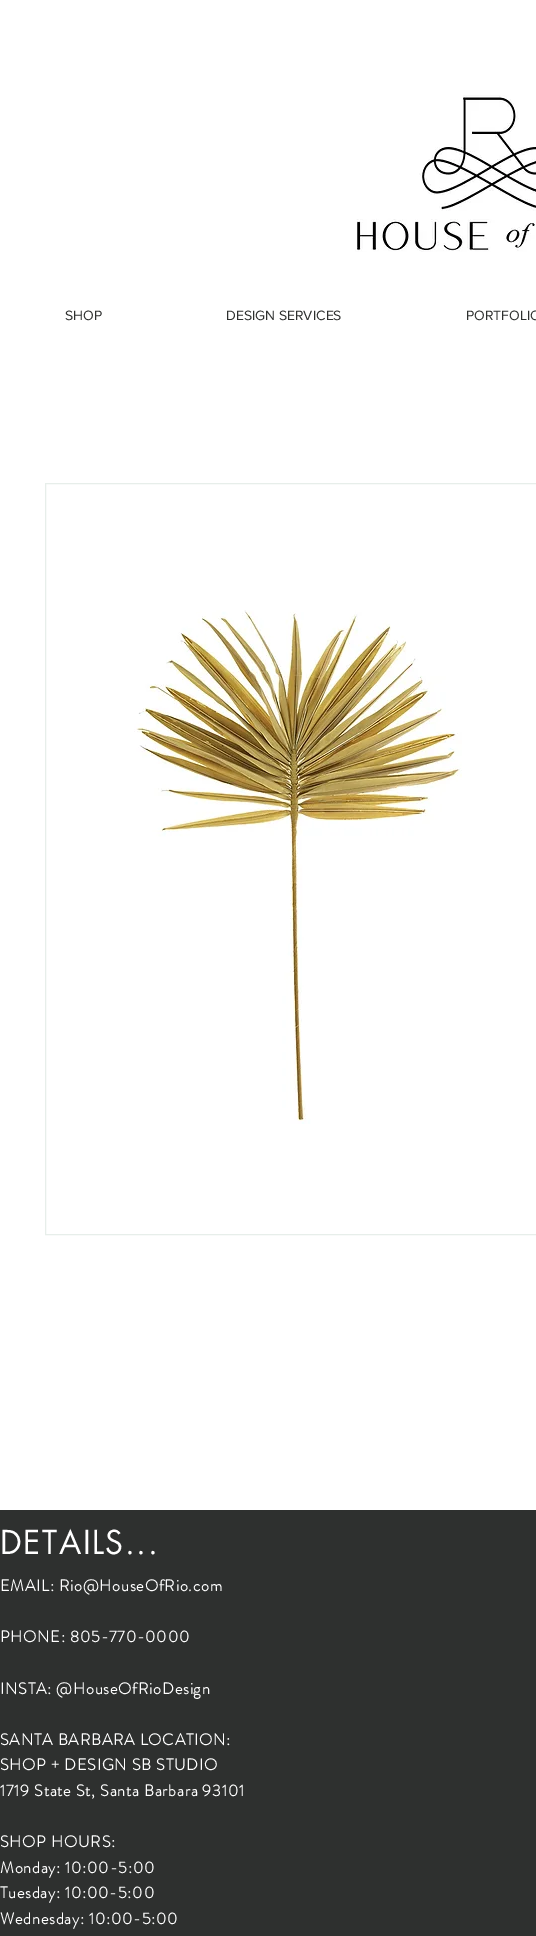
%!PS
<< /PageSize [536 1936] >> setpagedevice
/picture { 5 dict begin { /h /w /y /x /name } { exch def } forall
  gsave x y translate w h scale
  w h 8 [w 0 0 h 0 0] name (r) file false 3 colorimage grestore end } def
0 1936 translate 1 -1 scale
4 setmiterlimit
1 setgray
0 0 536 1936 rectfill
(img1.rgb) 355 95 181 157 picture
/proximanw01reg-Regular [14 0 0 -14 0 0] selectfont
0.18 0.188 0.184 setrgbcolor
65 320 moveto (SHOP) show
226 320 moveto (DESIGN SERVICES) show
466 320 moveto (PORTFOLIO) show
0.906 0.933 0.918 setrgbcolor
45.5 483.5 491 751 rectstroke
(img2.rgb) 134 610 328 514 picture
0.18 0.188 0.184 setrgbcolor
0 1510 536 426 rectfill
/futura-Regular [32 0 0 -32 0 0] selectfont
1 setgray
0 1554 moveto 1.6 0 (DETAILS...) ashow
/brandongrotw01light-Bold [16 0 0 -16 0 0] selectfont
0 1591 moveto 0.8 0 (EMAIL: Rio@HouseOfRio.com) ashow
0 1642 moveto 0.8 0 (PHONE: 805-770-0000) ashow
0 1694 moveto 0.8 0 (INSTA: @HouseOfRioDesign) ashow
0 1745 moveto 0.8 0 (SANTA BARBARA LOCATION:) ashow
0 1770 moveto 0.8 0 (SHOP + DESIGN SB STUDIO) ashow
0 1796 moveto 0.8 0 (1719 State St, Santa Barbara 93101) ashow
0 1847 moveto 0.8 0 (SHOP HOURS:) ashow
0 1873 moveto 0.8 0 (Monday: 10:00-5:00) ashow
0 1898 moveto 0.8 0 (Tuesday: 10:00-5:00) ashow
0 1924 moveto 0.8 0 (Wednesday: 10:00-5:00) ashow
showpage
